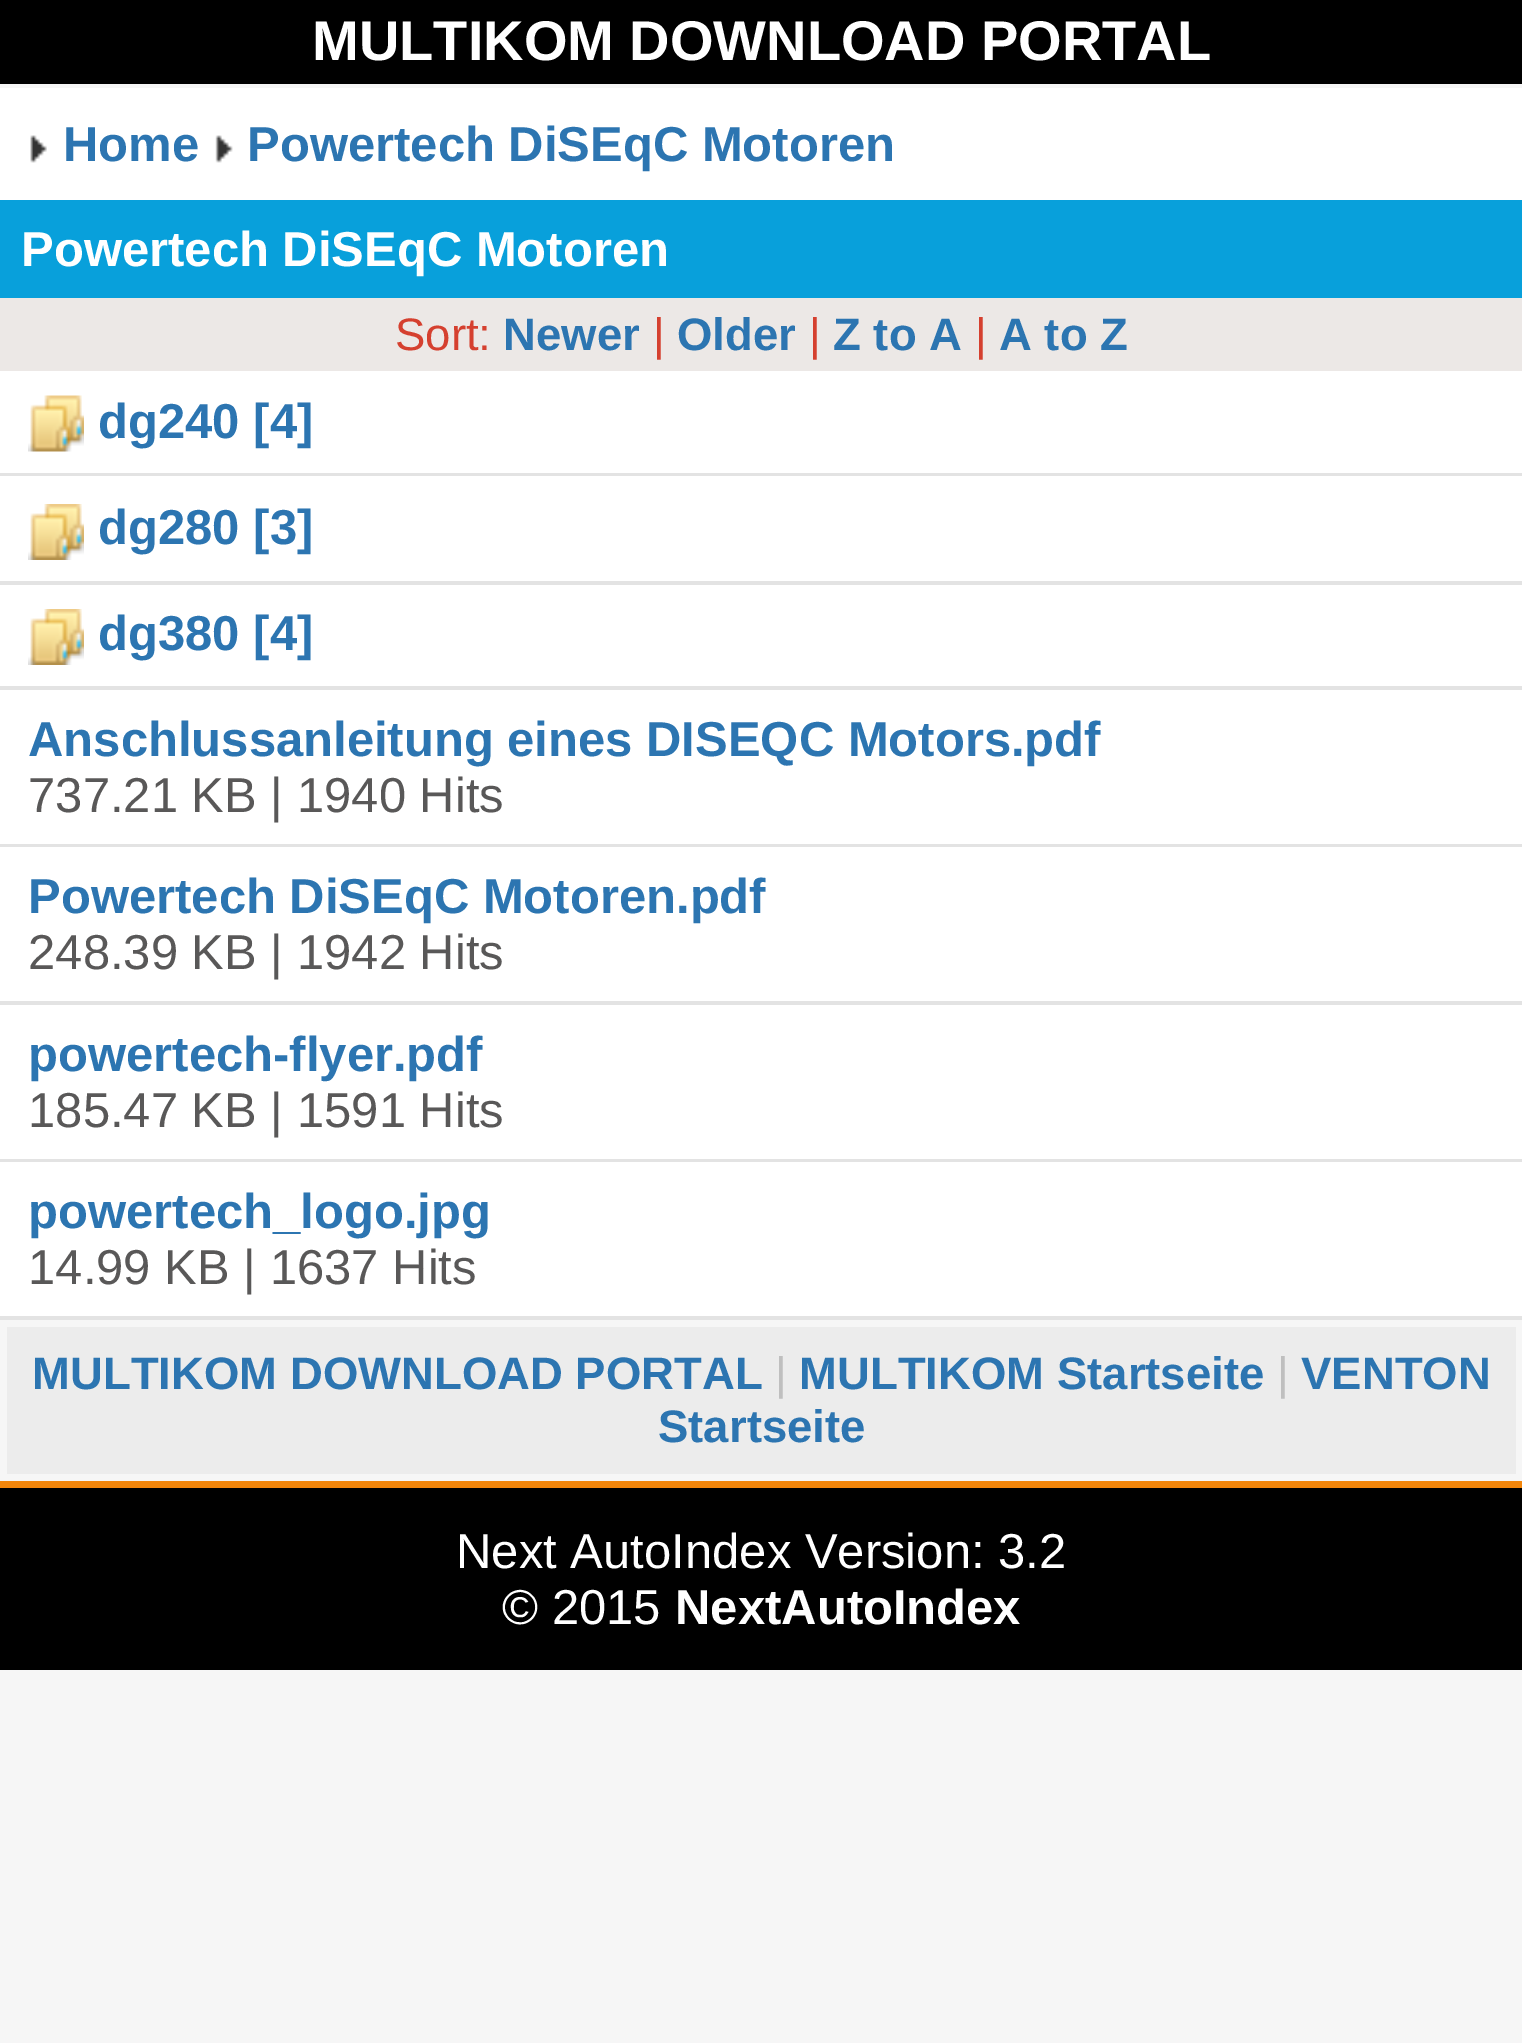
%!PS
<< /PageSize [1522 2043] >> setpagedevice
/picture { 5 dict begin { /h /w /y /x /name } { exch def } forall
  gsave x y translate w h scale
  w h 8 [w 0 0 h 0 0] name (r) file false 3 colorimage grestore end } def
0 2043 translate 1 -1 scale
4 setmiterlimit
0.965 setgray
0 0 1522 2043 rectfill
0 setgray
0 0 1522 84 rectfill
/LiberationSans-Bold [56 0 0 -56 0 0] selectfont
1 setgray
312 60 moveto (MULTIKOM DOWNLOAD PORTAL) show
0 88 1522 112 rectfill
(img1.rgb) 30 135 17 28 picture
/LiberationSans-Bold [49 0 0 -49 0 0] selectfont
0.173 0.459 0.694 setrgbcolor
63 161 moveto (Home) show
(img2.rgb) 215 135 18 28 picture
247 161 moveto (Powertech DiSEqC Motoren) show
0.031 0.627 0.859 setrgbcolor
0 200 1522 98 rectfill
1 setgray
21 266 moveto (Powertech DiSEqC Motoren) show
0.925 0.91 0.902 setrgbcolor
0 298 1522 73 rectfill
/LiberationSans-Regular [45.5 0 0 -45.5 0 0] selectfont
0.835 0.251 0.184 setrgbcolor
395 350 moveto (Sort:) show
/LiberationSans-Bold [45.5 0 0 -45.5 0 0] selectfont
0.173 0.459 0.694 setrgbcolor
503 350 moveto (Newer) show
/LiberationSans-Regular [45.5 0 0 -45.5 0 0] selectfont
0.835 0.251 0.184 setrgbcolor
653 350 moveto (|) show
/LiberationSans-Bold [45.5 0 0 -45.5 0 0] selectfont
0.173 0.459 0.694 setrgbcolor
677 350 moveto (Older) show
/LiberationSans-Regular [45.5 0 0 -45.5 0 0] selectfont
0.835 0.251 0.184 setrgbcolor
809 350 moveto (|) show
/LiberationSans-Bold [45.5 0 0 -45.5 0 0] selectfont
0.173 0.459 0.694 setrgbcolor
833 350 moveto (Z to A) show
/LiberationSans-Regular [45.5 0 0 -45.5 0 0] selectfont
0.835 0.251 0.184 setrgbcolor
975 350 moveto (|) show
/LiberationSans-Bold [45.5 0 0 -45.5 0 0] selectfont
0.173 0.459 0.694 setrgbcolor
999 350 moveto (A to Z) show
1 setgray
0 371 1522 102 rectfill
0.89 setgray
0 473 1522 3 rectfill
(img3.rgb) 28 395 56 57 picture
/LiberationSans-Bold [49 0 0 -49 0 0] selectfont
0.173 0.459 0.694 setrgbcolor
98 438 moveto (dg240 [4]) show
1 setgray
0 476 1522 105 rectfill
0.89 setgray
0 581 1522 4 rectfill
(img4.rgb) 28 504 56 56 picture
0.173 0.459 0.694 setrgbcolor
98 544 moveto (dg280 [3]) show
1 setgray
0 585 1522 101 rectfill
0.89 setgray
0 686 1522 4 rectfill
(img4.rgb) 28 609 56 56 picture
0.173 0.459 0.694 setrgbcolor
98 650 moveto (dg380 [4]) show
1 setgray
0 690 1522 154 rectfill
0.89 setgray
0 844 1522 3 rectfill
0.173 0.459 0.694 setrgbcolor
28 756 moveto (Anschlussanleitung eines DISEQC Motors.pdf) show
/LiberationSans-Regular [49 0 0 -49 0 0] selectfont
0.349 0.345 0.345 setrgbcolor
28 812 moveto (737.21 KB | 1940 Hits) show
1 setgray
0 847 1522 154 rectfill
0.89 setgray
0 1001 1522 4 rectfill
/LiberationSans-Bold [49 0 0 -49 0 0] selectfont
0.173 0.459 0.694 setrgbcolor
28 913 moveto (Powertech DiSEqC Motoren.pdf) show
/LiberationSans-Regular [49 0 0 -49 0 0] selectfont
0.349 0.345 0.345 setrgbcolor
28 969 moveto (248.39 KB | 1942 Hits) show
1 setgray
0 1005 1522 154 rectfill
0.89 setgray
0 1159 1522 3 rectfill
/LiberationSans-Bold [49 0 0 -49 0 0] selectfont
0.173 0.459 0.694 setrgbcolor
28 1071 moveto (powertech-flyer.pdf) show
/LiberationSans-Regular [49 0 0 -49 0 0] selectfont
0.349 0.345 0.345 setrgbcolor
28 1127 moveto (185.47 KB | 1591 Hits) show
1 setgray
0 1162 1522 154 rectfill
0.89 setgray
0 1316 1522 4 rectfill
/LiberationSans-Bold [49 0 0 -49 0 0] selectfont
0.173 0.459 0.694 setrgbcolor
28 1228 moveto (powertech_logo.jpg) show
/LiberationSans-Regular [49 0 0 -49 0 0] selectfont
0.349 0.345 0.345 setrgbcolor
28 1284 moveto (14.99 KB | 1637 Hits) show
0.925 setgray
7 1327 1509 147 rectfill
/LiberationSans-Bold [45.5 0 0 -45.5 0 0] selectfont
0.173 0.459 0.694 setrgbcolor
32 1389 moveto (MULTIKOM DOWNLOAD PORTAL) show
/LiberationSans-Regular [45.5 0 0 -45.5 0 0] selectfont
0.749 setgray
775 1389 moveto (|) show
/LiberationSans-Bold [45.5 0 0 -45.5 0 0] selectfont
0.173 0.459 0.694 setrgbcolor
799 1389 moveto (MULTIKOM Startseite) show
/LiberationSans-Regular [45.5 0 0 -45.5 0 0] selectfont
0.749 setgray
1277 1389 moveto (|) show
/LiberationSans-Bold [45.5 0 0 -45.5 0 0] selectfont
0.173 0.459 0.694 setrgbcolor
1301 1389 moveto (VENTON) show
658 1442 moveto (Startseite) show
0 setgray
0 1488 1522 182 rectfill
0.953 0.525 0.043 setrgbcolor
0 1481 1522 7 rectfill
/LiberationSans-Regular [49 0 0 -49 0 0] selectfont
1 setgray
456 1568 moveto (Next AutoIndex Version: 3.2) show
502 1624 moveto (© 2015) show
/LiberationSans-Bold [49 0 0 -49 0 0] selectfont
675 1624 moveto (NextAutoIndex) show
showpage
